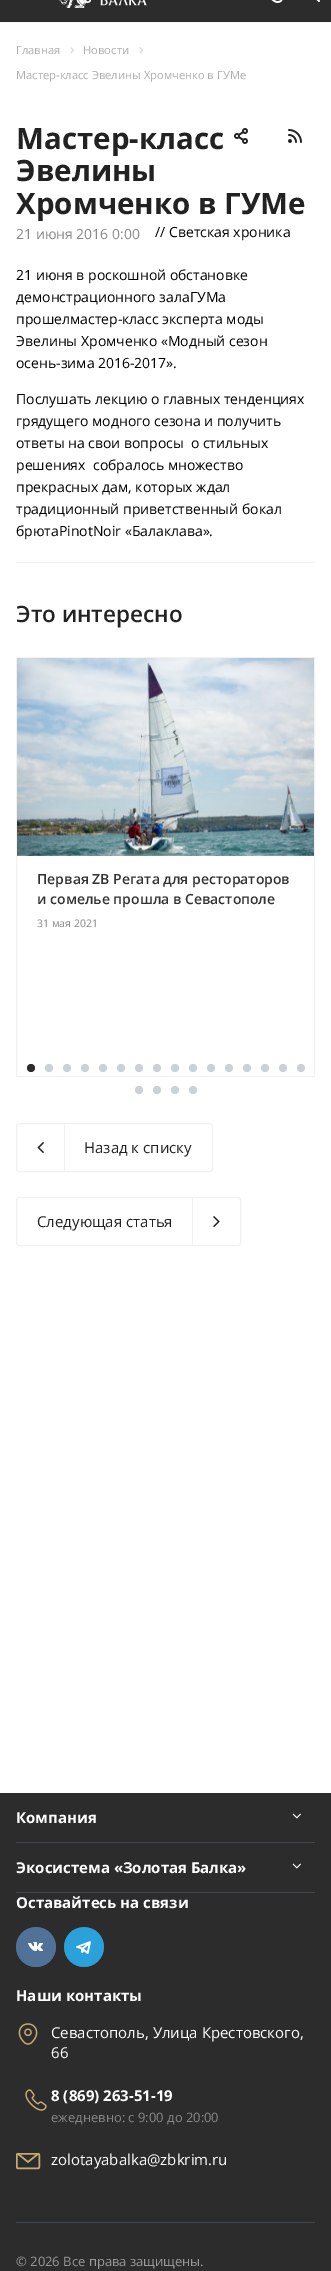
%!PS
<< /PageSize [331 2271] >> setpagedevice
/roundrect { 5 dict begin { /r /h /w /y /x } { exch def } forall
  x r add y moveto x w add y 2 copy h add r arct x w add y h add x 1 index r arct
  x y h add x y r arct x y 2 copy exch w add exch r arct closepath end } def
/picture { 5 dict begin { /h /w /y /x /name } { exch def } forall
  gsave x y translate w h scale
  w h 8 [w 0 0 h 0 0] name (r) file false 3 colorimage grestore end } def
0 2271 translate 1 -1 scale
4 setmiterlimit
1 setgray
0 0 331 2271 rectfill
0.173 setgray
0 0 331 22 rectfill
0.961 setgray
0 22 331 1 rectfill
(img1.rgb) 59 0 88 8 picture
(img2.rgb) 271 0 12 3 picture
(img3.rgb) 316 0 4 2 picture
/OpenSans-Regular [11.2 0 0 -11.2 0 0] selectfont
0.682 setgray
16 54 moveto (Главная) show
(img4.rgb) 70 47 5 7 picture
83 54 moveto (Новости) show
(img4.rgb) 139 47 5 7 picture
16 79 moveto (Мастер-класс Эвелины Хромченко в ГУМе) show
/OpenSans-Bold [29.5 0 0 -29.5 0 0] selectfont
0.133 setgray
16 149 moveto (Мастер-класс) show
16 181 moveto (Эвелины) show
16 214 moveto (Хромченко в ГУМе) show
(img5.rgb) 234 128 14 16 picture
(img6.rgb) 288 129 14 14 picture
/OpenSans-Regular [14 0 0 -14 0 0] selectfont
0.533 setgray
16 239 moveto (21 июня 2016 0:00) show
0 setgray
155 237 moveto (// Светская хроника) show
16 280 moveto (21 июня в роскошной обстановке) show
16 302 moveto (демонстрационного залаГУМа) show
16 324 moveto (прошелмастер-класс эксперта моды) show
16 346 moveto (Эвелины Хромченко «Модный сезон) show
16 368 moveto (осень-зима 2016-2017».) show
16 404 moveto (Послушать лекцию о главных тенденциях) show
16 426 moveto (грядущего модного сезона и получить) show
16 448 moveto (ответы на свои вопросы  о стильных) show
16 470 moveto (решениях  собралось множество) show
16 492 moveto (прекрасных дам, которых ждал) show
16 514 moveto (традиционный приветственный бокал) show
16 536 moveto (брютаPinotNoir «Балаклава».) show
0.949 setgray
16 562 299 1 rectfill
/OpenSans-SemiBold [22.5 0 0 -22.5 0 0] selectfont
0.133 setgray
16 622 moveto (Это интересно) show
0.949 setgray
16.5 657.5 298 419 rectstroke
(img7.rgb) 17 658 297 198 picture
/OpenSans-SemiBold [14 0 0 -14 0 0] selectfont
0.2 setgray
37 884 moveto (Первая ZB Регата для рестораторов) show
37 904 moveto (и сомелье прошла в Севастополе) show
/OpenSans-Regular [10.5 0 0 -10.5 0 0] selectfont
0.533 setgray
37 927 moveto (31 мая 2021) show
0.173 setgray
newpath 31 1068 4 0 360 arc closepath fill
0.792 0.824 0.839 setrgbcolor
newpath 49 1068 4 0 360 arc closepath fill
newpath 67 1068 4 0 360 arc closepath fill
newpath 85 1068 4 0 360 arc closepath fill
newpath 103 1068 4 0 360 arc closepath fill
newpath 121 1068 4 0 360 arc closepath fill
newpath 139 1068 4 0 360 arc closepath fill
newpath 157 1068 4 0 360 arc closepath fill
newpath 175 1068 4 0 360 arc closepath fill
newpath 193 1068 4 0 360 arc closepath fill
newpath 211 1068 4 0 360 arc closepath fill
newpath 229 1068 4 0 360 arc closepath fill
newpath 247 1068 4 0 360 arc closepath fill
newpath 265 1068 4 0 360 arc closepath fill
newpath 283 1068 4 0 360 arc closepath fill
newpath 301 1068 4 0 360 arc closepath fill
newpath 139 1090 4 0 360 arc closepath fill
newpath 157 1090 4 0 360 arc closepath fill
newpath 175 1090 4 0 360 arc closepath fill
newpath 193 1090 4 0 360 arc closepath fill
0.949 setgray
16.5 1123.5 196 48 2.5 roundrect stroke
(img8.rgb) 37 1142 7 12 picture
64 1124 1 47 rectfill
/OpenSans-Regular [15 0 0 -15 0 0] selectfont
0.133 setgray
84 1153 moveto (Назад к списку) show
0.949 setgray
16.5 1197.5 224 48 2.5 roundrect stroke
0.133 setgray
37 1227 moveto (Следующая статья) show
0.949 setgray
192 1198 1 47 rectfill
(img9.rgb) 213 1216 7 12 picture
0.173 setgray
0 1793 331 478 rectfill
0.255 0.278 0.306 setrgbcolor
16 1842 299 1 rectfill
/OpenSans-Bold [15 0 0 -15 0 0] selectfont
1 setgray
16 1823 moveto (Компания) show
(img10.rgb) 292 1813 9 6 picture
0.255 0.278 0.306 setrgbcolor
16 1892 299 1 rectfill
1 setgray
16 1873 moveto (Экосистема «Золотая Балка») show
(img10.rgb) 292 1863 9 6 picture
16 1908 moveto (Оставайтесь на связи) show
0.31 0.353 0.42 setrgbcolor
newpath 36 1947 20 0 360 arc closepath fill
(img11.rgb) 16 1927 40 40 picture
newpath 84 1947 20 0 360 arc closepath fill
(img12.rgb) 64 1927 40 40 picture
1 setgray
16 2001 moveto (Наши контакты) show
(img13.rgb) 18 2023 20 22 picture
/OpenSans-Regular [15 0 0 -15 0 0] selectfont
51 2038 moveto (Севастополь, Улица Крестовского,) show
51 2058 moveto (66) show
(img14.rgb) 25 2089 22 22 picture
/OpenSans-Bold [15 0 0 -15 0 0] selectfont
51 2101 moveto (8 \(869\) 263-51-19) show
/OpenSans-Regular [13 0 0 -13 0 0] selectfont
0.533 setgray
51 2122 moveto (ежедневно: с 9:00 до 20:00) show
0.773 0.667 0.447 setrgbcolor
1.5 setlinewidth
16.75 2153.75 22.5 14.5 1.25 roundrect stroke
newpath 17.5 2153.5 moveto 28 2162 lineto 38.5 2153.5 lineto stroke
/OpenSans-Regular [15 0 0 -15 0 0] selectfont
1 setgray
51 2165 moveto (zolotayabalka@zbkrim.ru) show
0.255 0.278 0.306 setrgbcolor
16 2222 299 1 rectfill
/OpenSans-Regular [13 0 0 -13 0 0] selectfont
0.6 setgray
16 2266 moveto (© 2026 Все права защищены.) show
showpage
